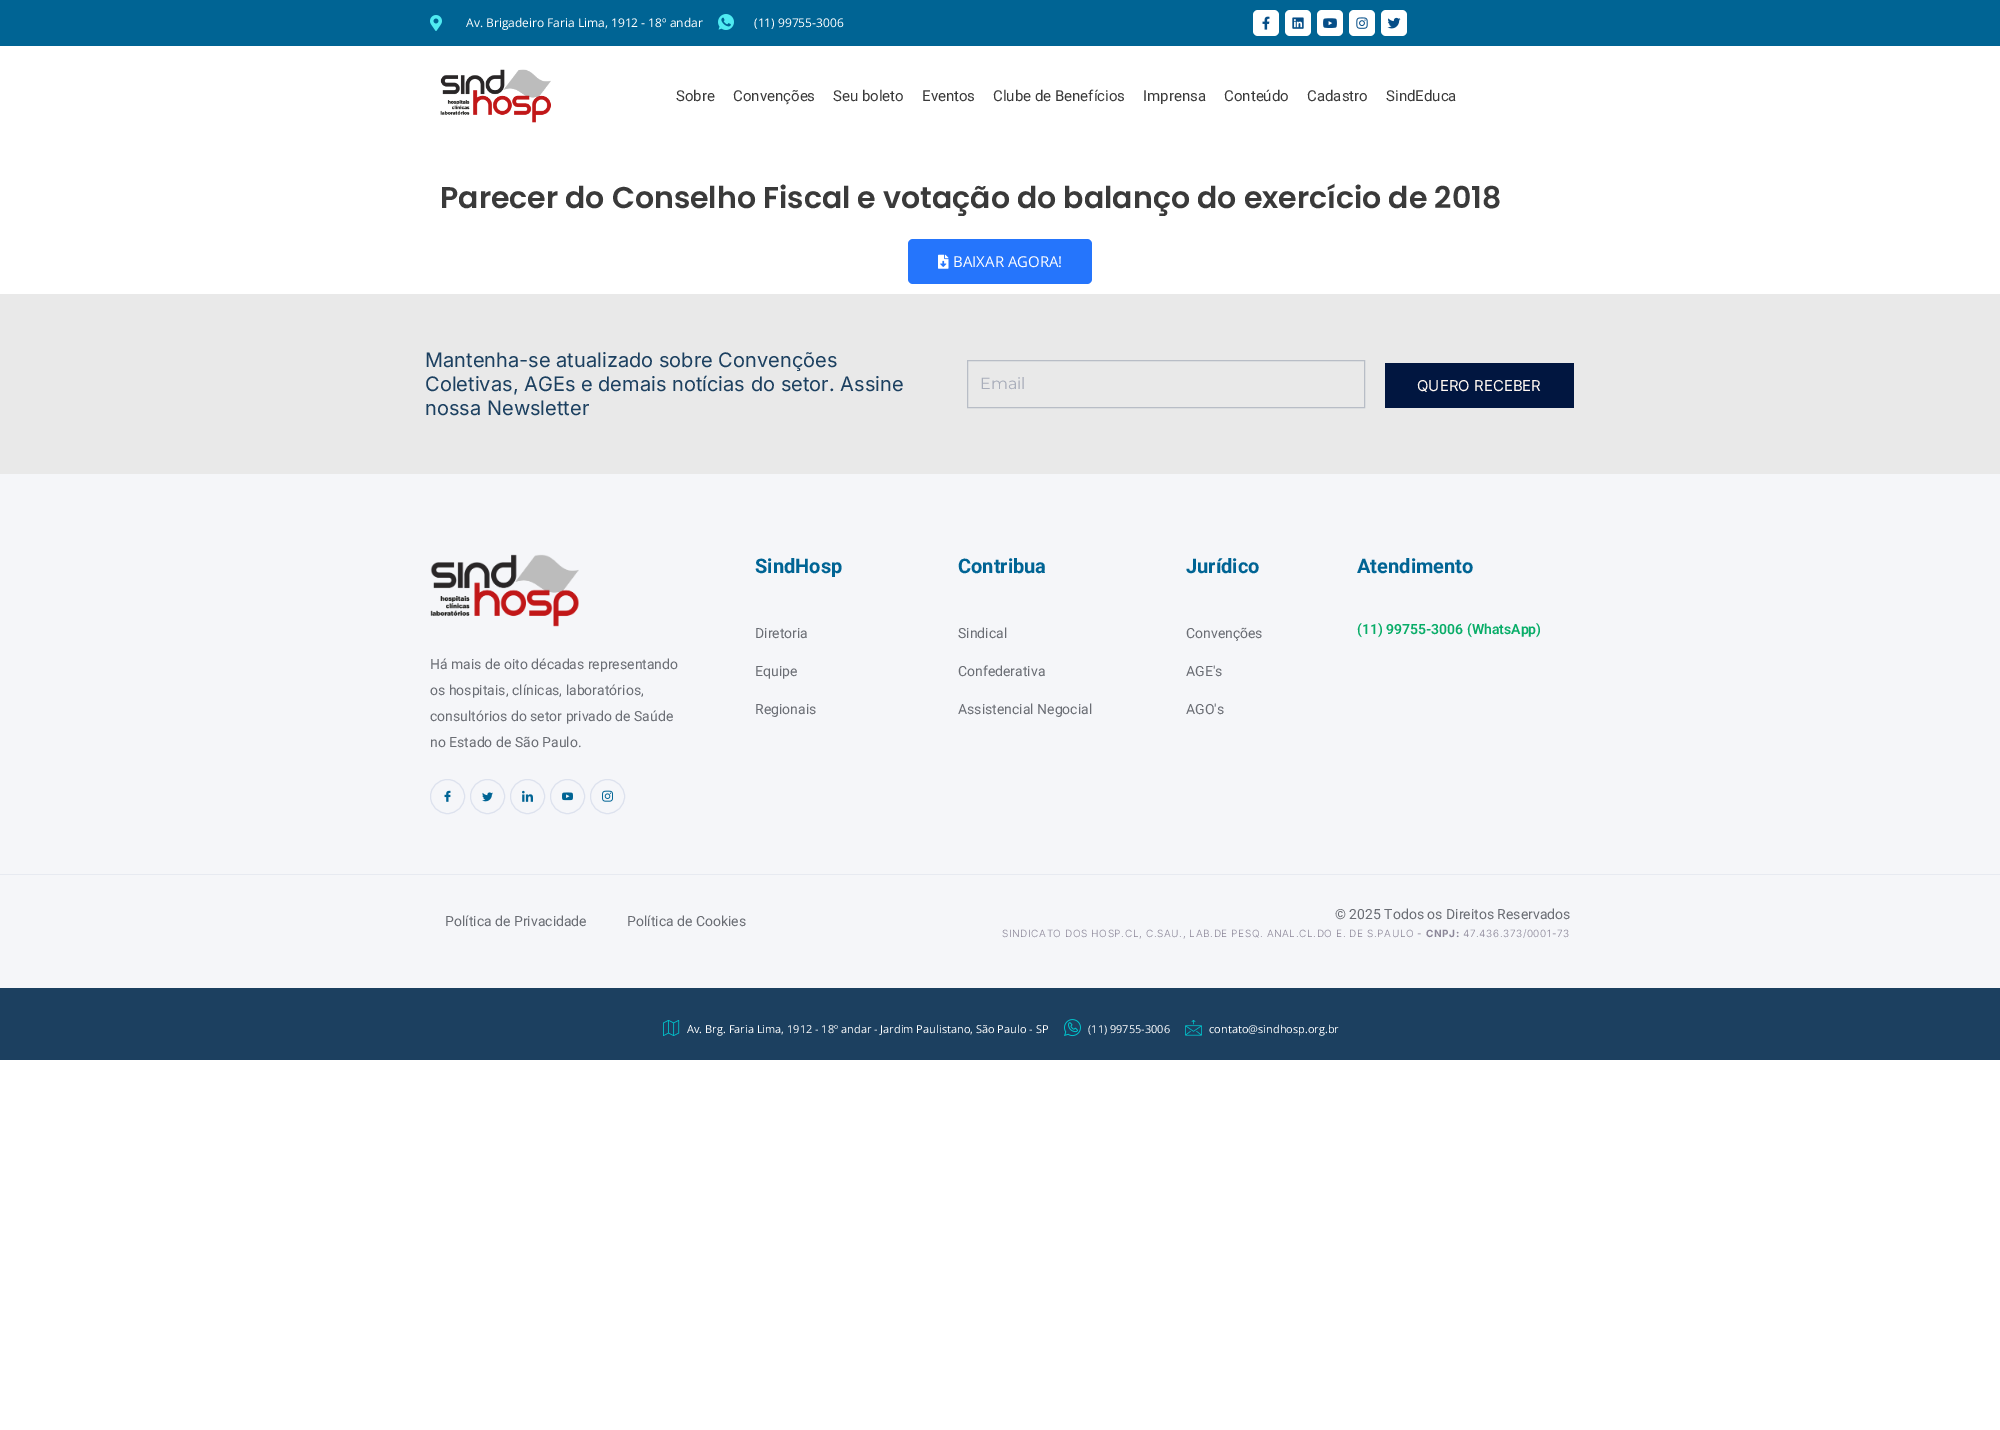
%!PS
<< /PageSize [2000 1430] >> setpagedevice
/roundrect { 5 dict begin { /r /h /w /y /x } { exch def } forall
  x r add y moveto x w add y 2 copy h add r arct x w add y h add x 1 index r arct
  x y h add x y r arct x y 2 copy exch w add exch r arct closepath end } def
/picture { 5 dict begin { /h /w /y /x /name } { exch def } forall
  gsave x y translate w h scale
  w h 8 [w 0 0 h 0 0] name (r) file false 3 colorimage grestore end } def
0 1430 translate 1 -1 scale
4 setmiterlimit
1 setgray
0 0 2000 1430 rectfill
0 0.392 0.58 setrgbcolor
0 0 2000 46 rectfill
(img1.rgb) 430 15 12 16 picture
/OpenSans-Regular [12 0 0 -12 0 0] selectfont
1 setgray
466 27 moveto (Av. Brigadeiro Faria Lima, 1912 - 18º andar) show
(img2.rgb) 718 14 16 16 picture
754 27 moveto (\(11\) 99755-3006) show
1253 10 26 26 5 roundrect fill
(img3.rgb) 1262 16 8 14 picture
1285 10 26 26 5 roundrect fill
(img4.rgb) 1292 17 12 12 picture
1317 10 26 26 5 roundrect fill
(img5.rgb) 1323 18 14 10 picture
1349 10 26 26 5 roundrect fill
(img6.rgb) 1356 17 12 12 picture
1381 10 26 26 5 roundrect fill
(img7.rgb) 1387 17 14 12 picture
(img8.rgb) 440 69 111 54 picture
/Roboto-Regular [15 0 0 -15 0 0] selectfont
0.227 setgray
676 101 moveto (Sobre) show
733 101 moveto (Convenções) show
833 101 moveto (Seu boleto) show
922 101 moveto (Eventos) show
993 101 moveto (Clube de Benefícios) show
1143 101 moveto (Imprensa) show
1224 101 moveto (Conteúdo) show
1307 101 moveto (Cadastro) show
1386 101 moveto (SindEduca) show
/Poppins-SemiBold [30 0 0 -30 0 0] selectfont
440 208 moveto (Parecer do Conselho Fiscal e votação do balanço do exercício de 2018) show
0.145 0.459 0.988 setrgbcolor
908 239 184 45 5 roundrect fill
(img9.rgb) 938 254 11 15 picture
/OpenSans-Regular [15 0 0 -15 0 0] selectfont
1 setgray
953 267 moveto (BAIXAR AGORA!) show
0.914 setgray
0 294 2000 180 rectfill
/Inter-Regular [20 0 0 -20 0 0] selectfont
0.11 0.251 0.376 setrgbcolor
425 367 moveto (Mantenha-se atualizado sobre Convenções) show
425 391 moveto (Coletivas, AGEs e demais notícias do setor. Assine) show
425 415 moveto (nossa Newsletter) show
0.722 0.741 0.776 setrgbcolor
967.5 360.5 397 47 rectstroke
/Montserrat-Regular [16 0 0 -16 0 0] selectfont
0.659 0.678 0.729 setrgbcolor
980 389 moveto (Email) show
0.004 0.086 0.251 setrgbcolor
1385 363 189 45 rectfill
/Inter-Regular [15 0 0 -15 0 0] selectfont
1 0.969 0.945 setrgbcolor
1417 391 moveto (QUERO RECEBER) show
0.961 0.965 0.976 setrgbcolor
0 474 2000 514 rectfill
/Heebo-Bold [20 0 0 -20 0 0] selectfont
0 0.392 0.58 setrgbcolor
755 573 moveto (SindHosp) show
/Roboto-Regular [14 0 0 -14 0 0] selectfont
0.416 0.427 0.455 setrgbcolor
755 638 moveto (Diretoria) show
755 676 moveto (Equipe) show
755 714 moveto (Regionais) show
/Heebo-Bold [20 0 0 -20 0 0] selectfont
0 0.392 0.58 setrgbcolor
958 573 moveto (Contribua) show
/Roboto-Regular [14 0 0 -14 0 0] selectfont
0.416 0.427 0.455 setrgbcolor
958 638 moveto (Sindical) show
958 676 moveto (Confederativa) show
958 714 moveto (Assistencial Negocial) show
/Heebo-Bold [20 0 0 -20 0 0] selectfont
0 0.392 0.58 setrgbcolor
1186 573 moveto (Jurídico) show
/Roboto-Regular [14 0 0 -14 0 0] selectfont
0.416 0.427 0.455 setrgbcolor
1186 638 moveto (Convenções) show
1186 676 moveto (AGE's) show
1186 714 moveto (AGO's) show
/Heebo-Bold [20 0 0 -20 0 0] selectfont
0 0.392 0.58 setrgbcolor
1357 573 moveto (Atendimento) show
/Roboto-SemiBold [14 0 0 -14 0 0] selectfont
0.031 0.678 0.408 setrgbcolor
1357 634 moveto (\(11\) 99755-3006 \(WhatsApp\)) show
(img10.rgb) 430 554 149 73 picture
/Roboto-Regular [14 0 0 -14 0 0] selectfont
0.416 0.427 0.455 setrgbcolor
430 669 moveto (Há mais de oito décadas representando) show
430 695 moveto (os hospitais, clínicas, laboratórios,) show
430 721 moveto (consultórios do setor privado de Saúde) show
430 747 moveto (no Estado de São Paulo.) show
0.867 0.886 0.933 setrgbcolor
newpath 447.5 796.5 17 0 360 arc closepath stroke
(img11.rgb) 444 790 7 12 picture
newpath 487.5 796.5 17 0 360 arc closepath stroke
(img12.rgb) 482 792 11 10 picture
newpath 527.5 796.5 17 0 360 arc closepath stroke
(img13.rgb) 522 790 11 12 picture
newpath 567.5 796.5 17 0 360 arc closepath stroke
(img14.rgb) 562 792 11 9 picture
newpath 607.5 796.5 17 0 360 arc closepath stroke
(img15.rgb) 602 790 11 12 picture
0.906 0.918 0.945 setrgbcolor
0 874 2000 1 rectfill
0.416 0.427 0.455 setrgbcolor
445 926 moveto (Política de Privacidade) show
627 926 moveto (Política de Cookies) show
1335 919 moveto (© 2025 Todos os Direitos Reservados) show
/Inter-Light [10 0 0 -10 0 0] selectfont
0.545 0.525 0.596 setrgbcolor
1002 937 moveto 0.6 0 (SINDICATO DOS HOSP.CL, C.SAU., LAB.DE PESQ. ANAL.CL.DO E. DE S.PAULO -) ashow
/Inter-Bold [10 0 0 -10 0 0] selectfont
1426 937 moveto 0.6 0 (CNPJ:) ashow
/Inter-Light [10 0 0 -10 0 0] selectfont
1463 937 moveto 0.6 0 (47.436.373/0001-73) ashow
0.11 0.251 0.376 setrgbcolor
0 988 2000 72 rectfill
(img16.rgb) 663 1020 17 16 picture
/OpenSans-Regular [11 0 0 -11 0 0] selectfont
1 setgray
687 1033 moveto (Av. Brg. Faria Lima, 1912 - 18º andar - Jardim Paulistano, São Paulo - SP) show
(img17.rgb) 1064 1019 17 18 picture
1088 1033 moveto (\(11\) 99755-3006) show
(img18.rgb) 1185 1020 17 16 picture
1209 1033 moveto (contato@sindhosp.org.br) show
showpage
